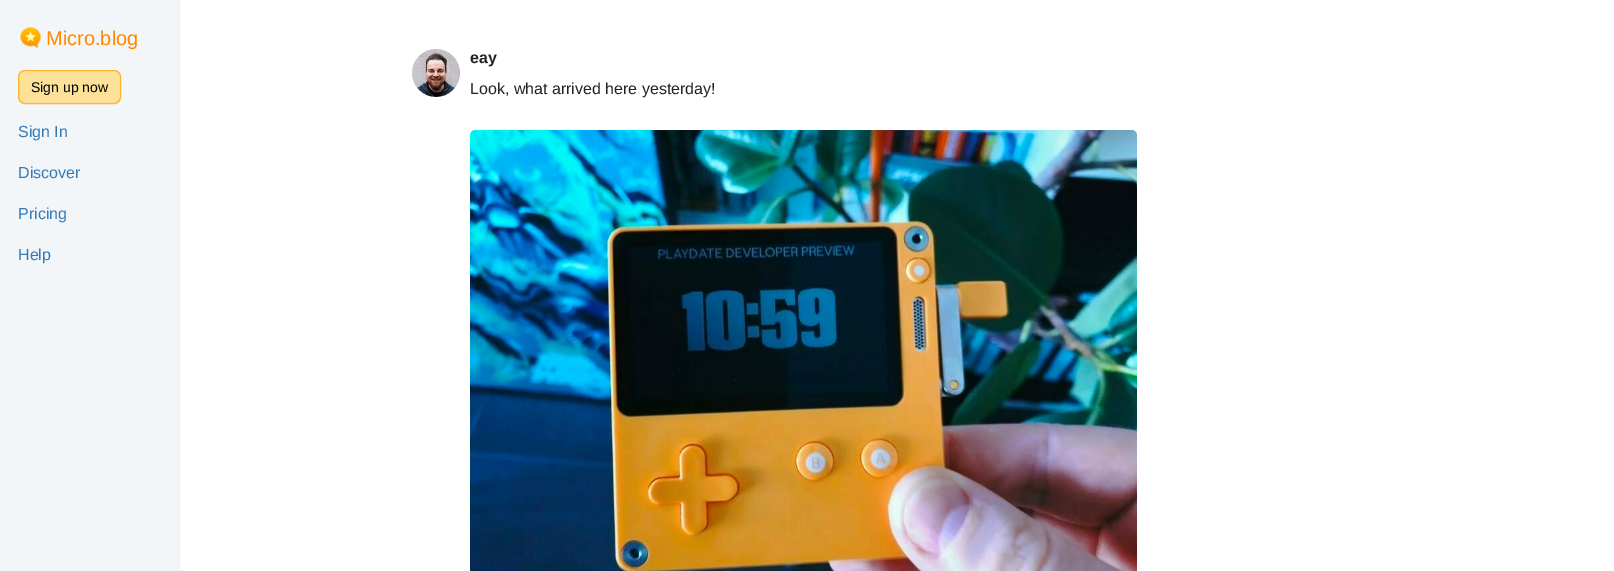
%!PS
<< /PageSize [1614 571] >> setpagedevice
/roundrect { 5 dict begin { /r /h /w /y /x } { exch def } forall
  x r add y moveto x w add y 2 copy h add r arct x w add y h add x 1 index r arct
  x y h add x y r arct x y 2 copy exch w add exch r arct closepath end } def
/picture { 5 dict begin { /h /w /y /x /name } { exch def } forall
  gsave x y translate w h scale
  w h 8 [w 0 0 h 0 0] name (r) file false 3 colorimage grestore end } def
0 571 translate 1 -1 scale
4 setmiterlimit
1 setgray
0 0 1614 571 rectfill
0.953 0.965 0.976 setrgbcolor
0 0 179 571 rectfill
0.937 setgray
179 0 1 571 rectfill
(img1.rgb) 20 27 22 22 picture
/LiberationSans-Regular [20 0 0 -20 0 0] selectfont
1 0.533 0 setrgbcolor
46 45 moveto (Micro.blog) show
0.996 0.882 0.6 setrgbcolor
18.5 70.5 102 33 6.5 roundrect gsave fill grestore
0.992 0.71 0.169 setrgbcolor
stroke
/LiberationSans-Regular [14 0 0 -14 0 0] selectfont
0 setgray
31 92 moveto (Sign up now) show
/LiberationSans-Regular [16 0 0 -16 0 0] selectfont
0.2 0.478 0.718 setrgbcolor
18 137 moveto (Sign In) show
18 178 moveto (Discover) show
18 219 moveto (Pricing) show
18 260 moveto (Help) show
(img2.rgb) 412 49 48 48 picture
/LiberationSans-Bold [16 0 0 -16 0 0] selectfont
0.133 setgray
470 63 moveto (eay) show
/LiberationSans-Regular [16 0 0 -16 0 0] selectfont
470 94 moveto (Look, what arrived here yesterday!) show
(img3.rgb) 470 130 667 441 picture
showpage
